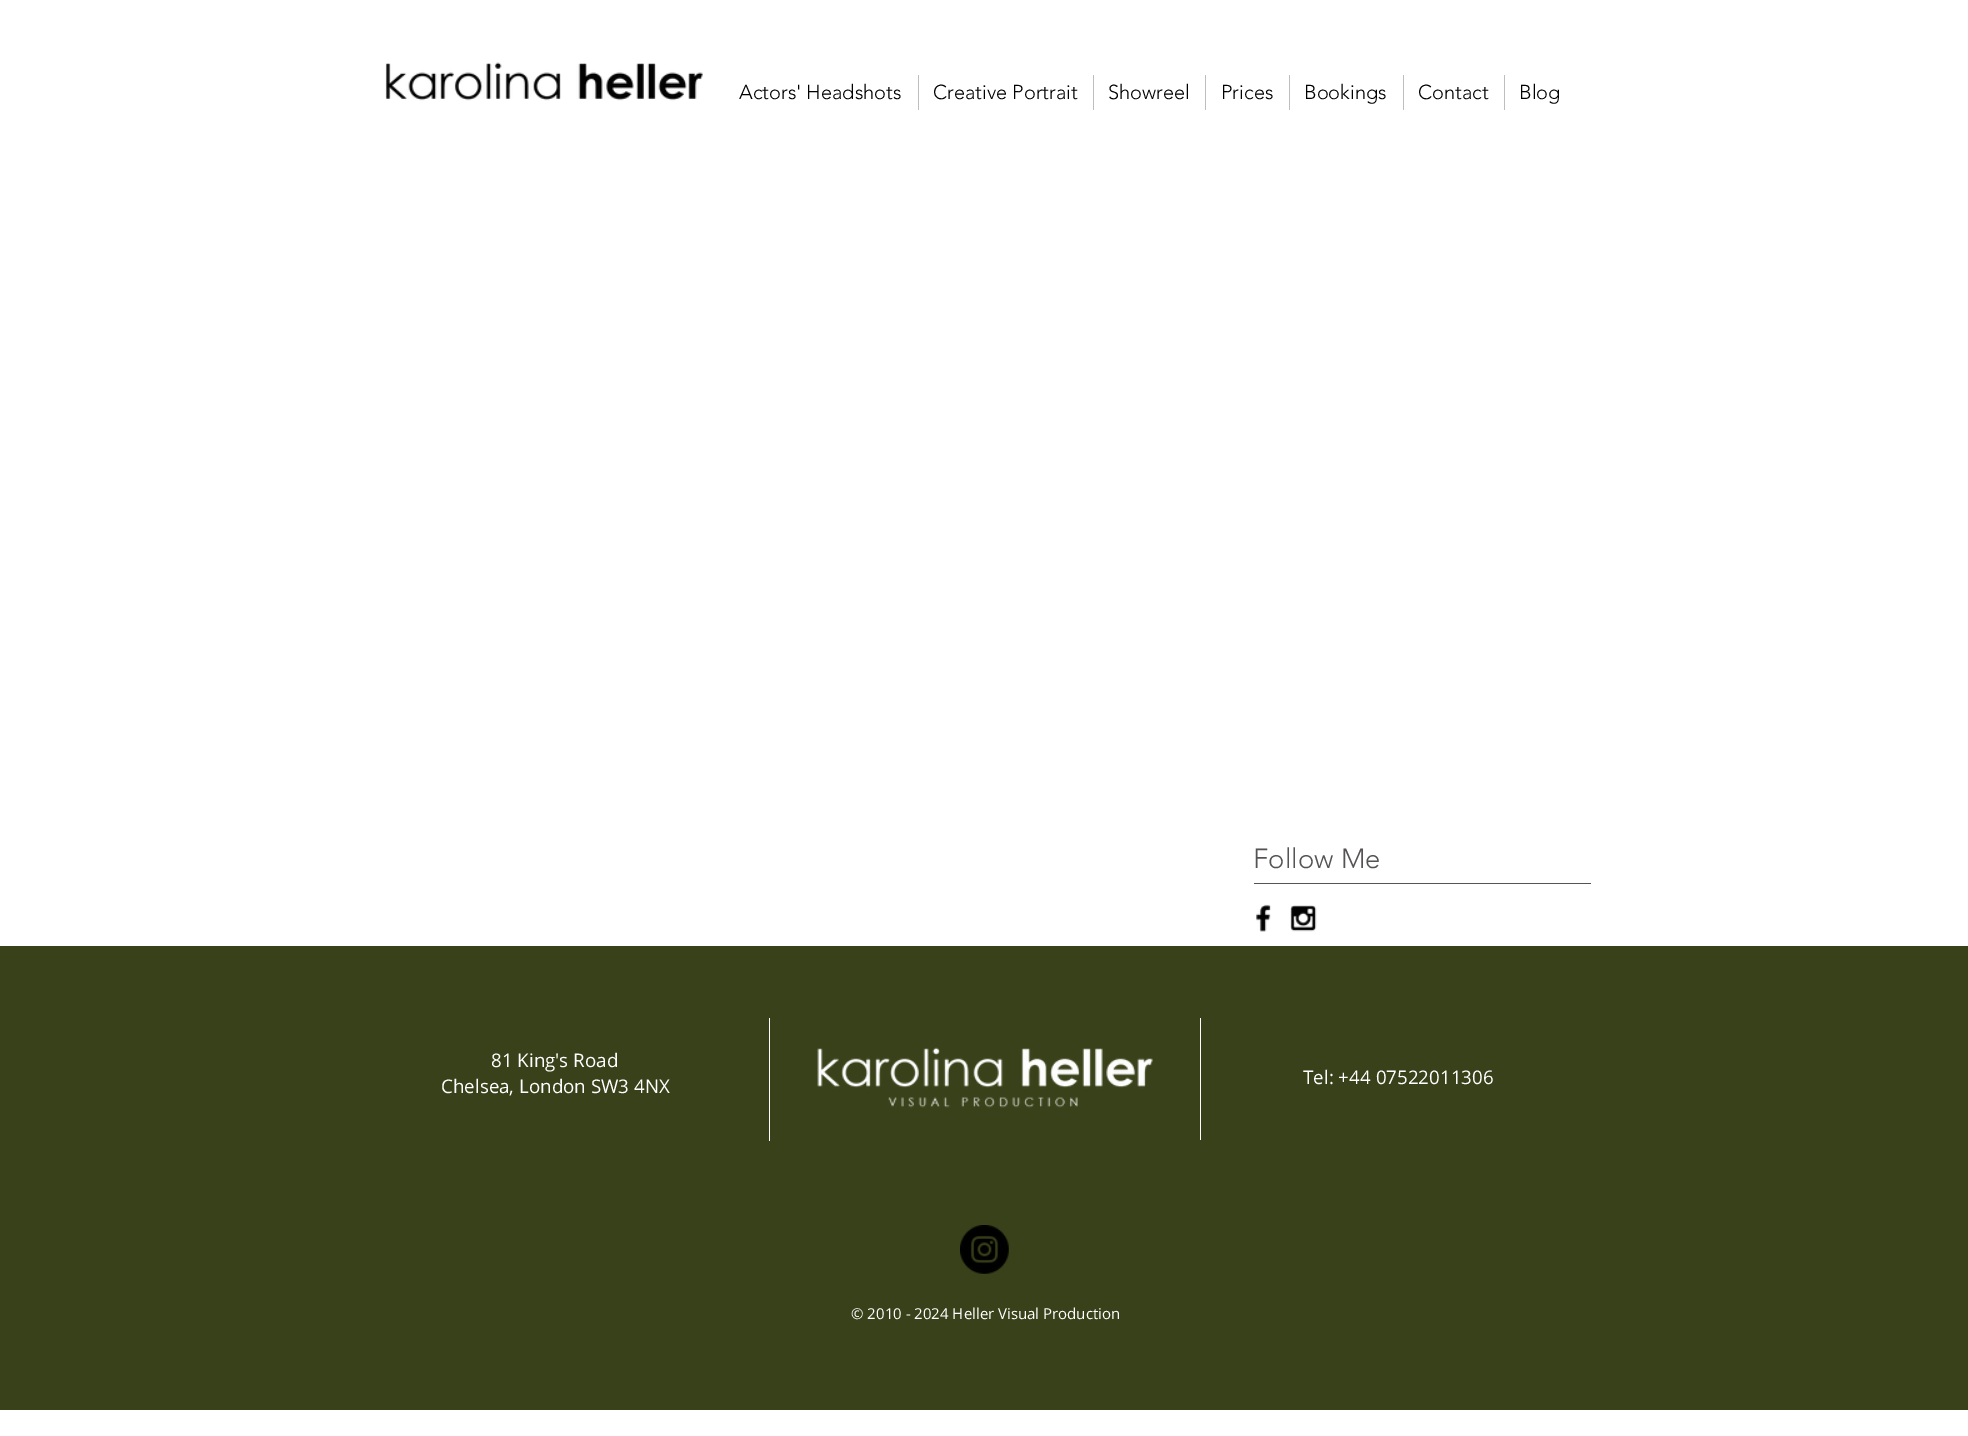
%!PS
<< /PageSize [1968 1436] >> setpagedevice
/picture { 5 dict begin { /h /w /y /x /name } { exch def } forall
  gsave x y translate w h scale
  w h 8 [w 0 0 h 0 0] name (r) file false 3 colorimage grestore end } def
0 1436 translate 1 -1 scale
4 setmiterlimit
1 setgray
0 0 1968 1436 rectfill
(img1.rgb) 385 62 318 39 picture
/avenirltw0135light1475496-Light [20 0 0 -20 0 0] selectfont
0 setgray
739 99 moveto (Actors' Headshots) show
0.745 setgray
918 75 1 35 rectfill
0 setgray
933 99 moveto (Creative Portrait) show
0.745 setgray
1093 75 1 35 rectfill
0 setgray
1108 99 moveto (Showreel) show
0.745 setgray
1205 75 1 35 rectfill
0 setgray
1221 99 moveto (Prices) show
0.745 setgray
1289 75 1 35 rectfill
0 setgray
1304 99 moveto (Bookings) show
0.745 setgray
1403 75 1 35 rectfill
0 setgray
1418 99 moveto (Contact) show
0.745 setgray
1504 75 1 35 rectfill
0 setgray
1519 99 moveto (Blog) show
/avenirltw0135light1475496-Light [27.5 0 0 -27.5 0 0] selectfont
0.333 0.325 0.325 setrgbcolor
1253 868 moveto (Follow Me) show
1254 883 337 1 rectfill
(img2.rgb) 1256 904 15 28 picture
(img3.rgb) 1290 905 27 27 picture
0.22 0.255 0.098 setrgbcolor
0 946 1968 464 rectfill
1 setgray
769 1018 1 123 rectfill
/OpenSans-Regular [18.75 0 0 -18.75 0 0] selectfont
491 1067 moveto (81 King's Road) show
441 1093 moveto (Chelsea, London SW3 4NX) show
(img4.rgb) 817 1047 336 61 picture
1200 1018 1 122 rectfill
1303 1084 moveto (Tel: +44 07522011306) show
(img5.rgb) 960 1225 49 49 picture
/OpenSans-Regular [15 0 0 -15 0 0] selectfont
851 1319 moveto (© 2010 - 2024 Heller Visual Production) show
showpage
